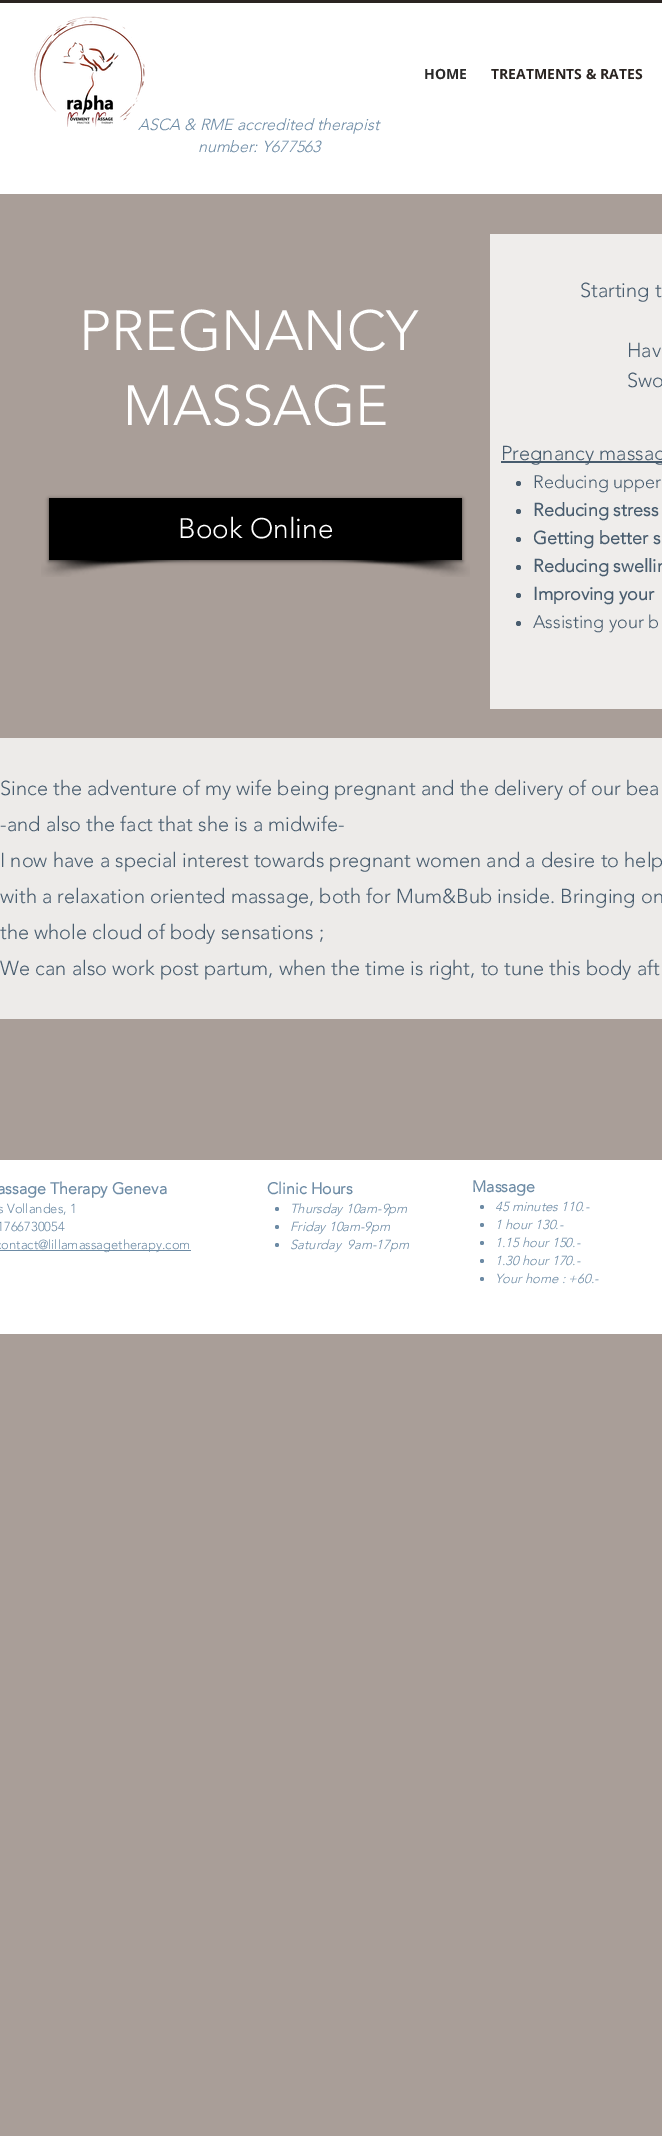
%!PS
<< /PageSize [662 2136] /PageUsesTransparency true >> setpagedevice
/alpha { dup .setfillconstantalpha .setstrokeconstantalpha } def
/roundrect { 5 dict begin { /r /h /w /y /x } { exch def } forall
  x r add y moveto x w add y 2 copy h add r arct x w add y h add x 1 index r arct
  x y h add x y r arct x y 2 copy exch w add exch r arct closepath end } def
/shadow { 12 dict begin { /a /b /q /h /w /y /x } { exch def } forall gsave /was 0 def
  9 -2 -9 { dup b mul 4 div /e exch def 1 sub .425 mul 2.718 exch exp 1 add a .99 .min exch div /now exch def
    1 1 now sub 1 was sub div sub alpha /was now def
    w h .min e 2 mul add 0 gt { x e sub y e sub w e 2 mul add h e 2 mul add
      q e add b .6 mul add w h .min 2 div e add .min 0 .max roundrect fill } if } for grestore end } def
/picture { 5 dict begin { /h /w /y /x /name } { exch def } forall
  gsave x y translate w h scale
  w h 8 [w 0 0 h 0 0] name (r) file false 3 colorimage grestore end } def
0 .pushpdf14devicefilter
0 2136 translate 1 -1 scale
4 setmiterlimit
0.663 0.62 0.596 setrgbcolor
0 0 662 2136 rectfill
1 setgray
0 3 662 191 rectfill
0.165 0.141 0.129 setrgbcolor
0 0 662 3 rectfill
/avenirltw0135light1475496-LightItalic [16 0 0 -16 0 0] selectfont
0.427 0.545 0.647 setrgbcolor
138 130 moveto (ASCA & RME accredited therapist) show
(img1.rgb) 32 16 113 111 picture
/OpenSans-Bold [14 0 0 -14 0 0] selectfont
0.165 setgray
424 79 moveto (HOME) show
0.165 0.141 0.129 setrgbcolor
491 79 moveto (TREATMENTS & RATES) show
/avenirltw0135light1475496-LightItalic [16 0 0 -16 0 0] selectfont
0.427 0.545 0.647 setrgbcolor
198 152 moveto (number: Y677563) show
/avenirltw0135light1475496-Light [56 0 0 -56 0 0] selectfont
1 setgray
79 350 moveto (PREGNANCY) show
123 425 moveto (MASSAGE) show
(img2.rgb) 41 560 148 17 picture
(img3.rgb) 322 560 148 17 picture
0 setgray
49 499 413 62 0 2 0.6 shadow
49 498 413 62 rectfill
/avenirltw0135light1475496-Light [28 0 0 -28 0 0] selectfont
1 setgray
178 538 moveto (Book Online) show
0.937 0.929 0.922 setrgbcolor
490 234 172 475 rectfill
/avenirltw0135light1475496-Light [20 0 0 -20 0 0] selectfont
0.282 0.361 0.431 setrgbcolor
580 297 moveto (Starting t) show
627 357 moveto (Hav) show
627 387 moveto (Swo) show
501 461 161 2 rectfill
501 460 moveto (Pregnancy massag) show
newpath 518.5 483.5 2.5 0 360 arc closepath fill
/avenirltw0135light1475496-Light [18 0 0 -18 0 0] selectfont
533 488 moveto (Reducing upper) show
newpath 518.5 511.5 2.5 0 360 arc closepath fill
/avenirltw0135light1475496-Bold [18 0 0 -18 0 0] selectfont
533 516 moveto (Reducing stress) show
newpath 518.5 539.5 2.5 0 360 arc closepath fill
533 544 moveto (Getting better s) show
newpath 518.5 567.5 2.5 0 360 arc closepath fill
533 572 moveto (Reducing swellin) show
newpath 518.5 595.5 2.5 0 360 arc closepath fill
533 600 moveto (Improving your) show
newpath 518.5 623.5 2.5 0 360 arc closepath fill
/avenirltw0135light1475496-Light [18 0 0 -18 0 0] selectfont
533 628 moveto (Assisting your b) show
0.929 0.922 0.914 setrgbcolor
0 738 662 281 rectfill
/avenirltw0135light1475496-Light [20 0 0 -20 0 0] selectfont
0.282 0.361 0.431 setrgbcolor
0 795 moveto (Since the adventure of my wife being pregnant and the delivery of our bea) show
0 831 moveto (-and also the fact that she is a midwife-) show
0 867 moveto (I now have a special interest towards pregnant women and a desire to help) show
0 903 moveto (with a relaxation oriented massage, both for Mum&Bub inside. Bringing on) show
0 939 moveto (the whole cloud of body sensations ;) show
0 975 moveto (We can also work post partum, when the time is right, to tune this body aft) show
1 setgray
0 1160 662 174 rectfill
/avenirltw0135light1475496-Bold [16 0 0 -16 0 0] selectfont
0.427 0.545 0.647 setrgbcolor
-3 1194 moveto (assage Therapy Geneva) show
/avenirltw0135light1475496-Light [13 0 0 -13 0 0] selectfont
-2 1213 moveto (s Vollandes, 1) show
-3 1231 moveto (1766730054) show
0 1250 191 1 rectfill
-5 1249 moveto (contact@lillamassagetherapy.com) show
/avenirltw0135light1475496-Bold [16 0 0 -16 0 0] selectfont
267 1194 moveto (Clinic Hours) show
newpath 277 1209 2 0 360 arc closepath fill
/avenirltw0135light1475496-LightItalic [13 0 0 -13 0 0] selectfont
290 1213 moveto (Thursday 10am-9pm) show
newpath 277 1227 2 0 360 arc closepath fill
290 1231 moveto (Friday 10am-9pm) show
newpath 277 1245 2 0 360 arc closepath fill
290 1249 moveto (Saturday  9am-17pm) show
/avenirltw0135light1475496-Bold [16 0 0 -16 0 0] selectfont
472 1192 moveto (Massage) show
newpath 482 1207 2 0 360 arc closepath fill
/avenirltw0135light1475496-LightItalic [13 0 0 -13 0 0] selectfont
495 1211 moveto (45 minutes 110.-) show
newpath 482 1225 2 0 360 arc closepath fill
495 1229 moveto (1 hour 130.-) show
newpath 482 1243 2 0 360 arc closepath fill
495 1247 moveto (1.15 hour 150.-) show
newpath 482 1261 2 0 360 arc closepath fill
495 1265 moveto (1.30 hour 170.-) show
newpath 482 1279 2 0 360 arc closepath fill
495 1283 moveto (Your home : +60.-) show
.poppdf14devicefilter showpage
